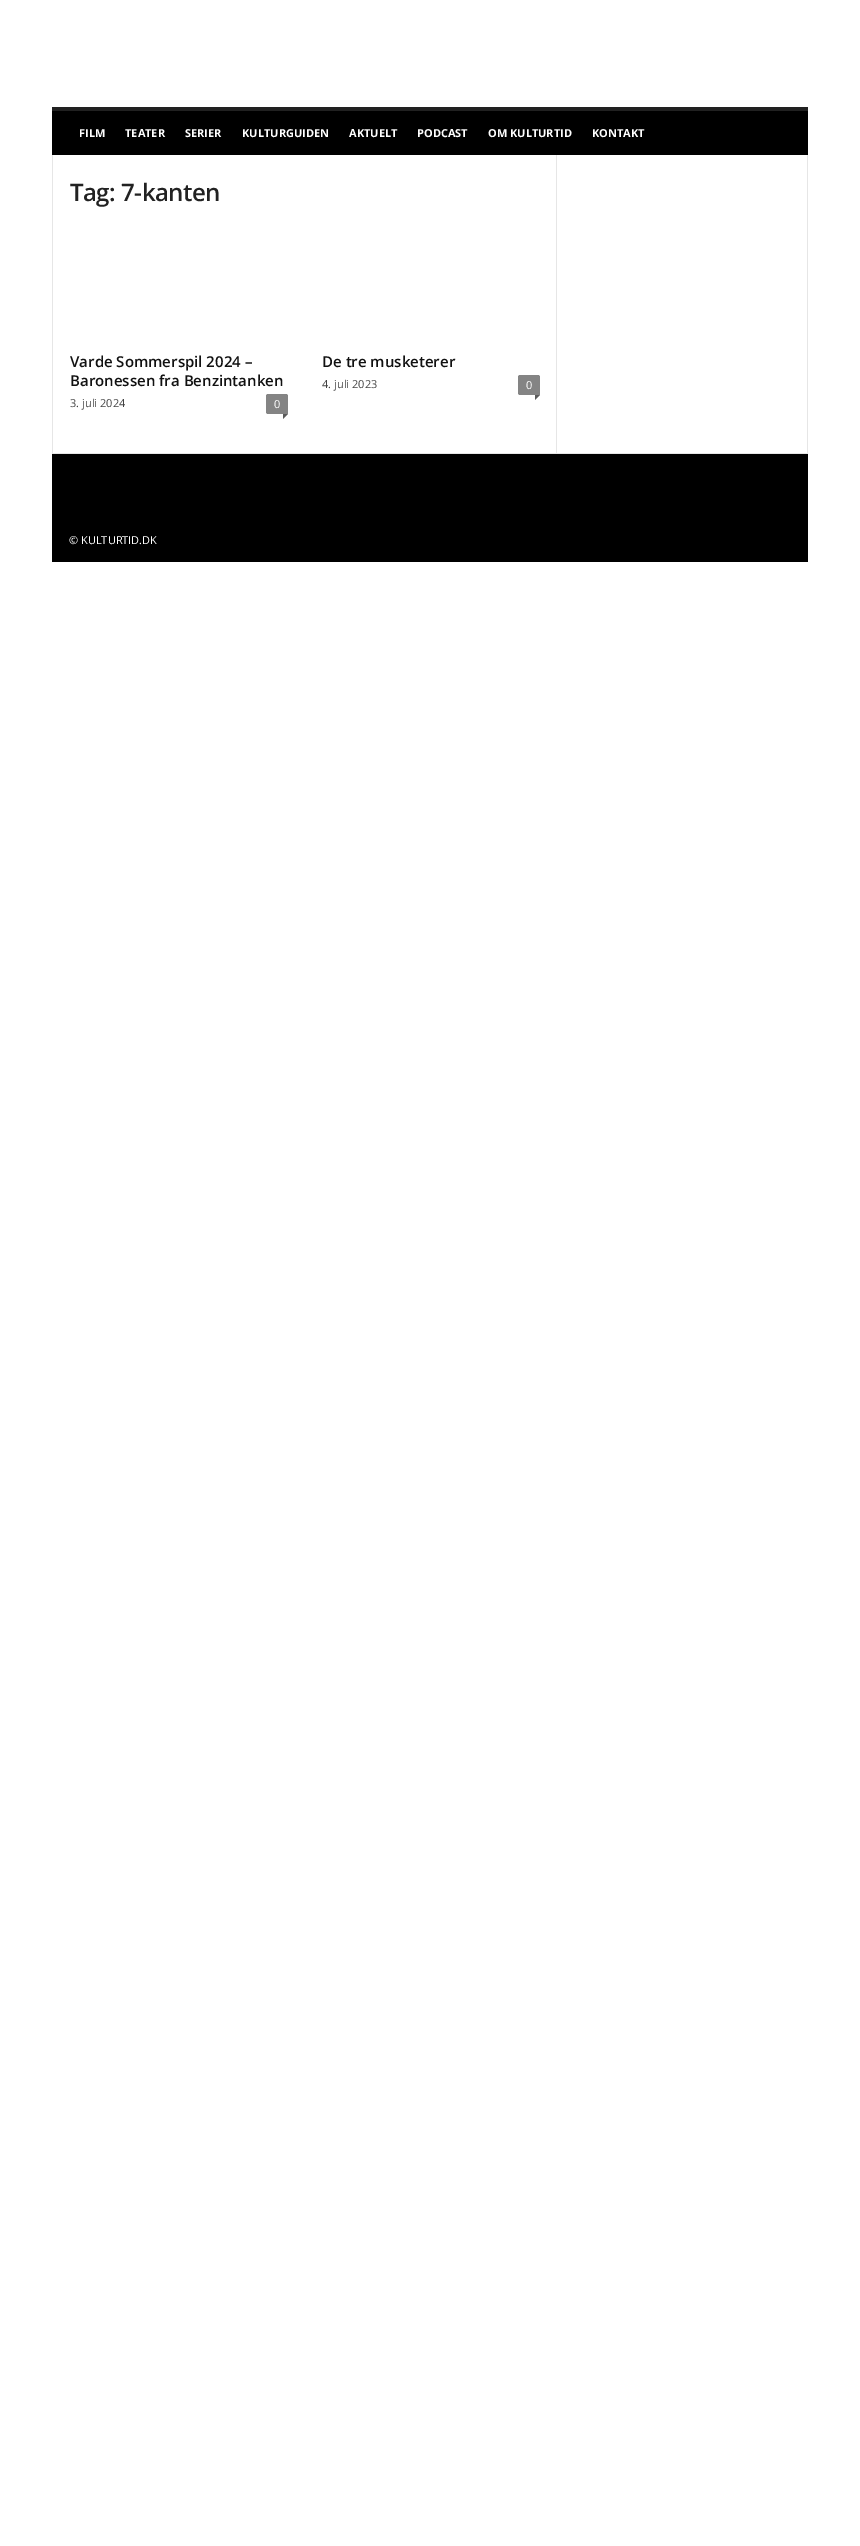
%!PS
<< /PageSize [860 2546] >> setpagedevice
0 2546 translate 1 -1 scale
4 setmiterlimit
1 setgray
0 0 860 2546 rectfill
0 setgray
52 111 756 44 rectfill
0.129 setgray
52 107 756 4 rectfill
/OpenSans-Bold [11 0 0 -11 0 0] selectfont
1 setgray
79 137 moveto (FILM) show
125 137 moveto (TEATER) show
185 137 moveto (SERIER) show
242 137 moveto (KULTURGUIDEN) show
349 137 moveto (AKTUELT) show
417 137 moveto (PODCAST) show
488 137 moveto (OM KULTURTID) show
592 137 moveto (KONTAKT) show
0.902 setgray
52 453 756 1 rectfill
52 155 1 298 rectfill
/OpenSans-SemiBold [24 0 0 -24 0 0] selectfont
0.133 setgray
70 201 moveto -0.5 0 (Tag: 7-kanten) ashow
/OpenSans-SemiBold [15 0 0 -15 0 0] selectfont
0.067 setgray
70 367 moveto (Varde Sommerspil 2024 –) show
70 386 moveto (Baronessen fra Benzintanken) show
/OpenSans-Regular [11 0 0 -11 0 0] selectfont
0.267 setgray
70 407 moveto (3. juli 2024) show
0.518 setgray
newpath 268 394 moveto 286 394 lineto 287 394 288 395 288 396 curveto 288 414 lineto 268 414 lineto 267 414 266 413 266 412 curveto 266 396 lineto 266 395 267 394 268 394 curveto closepath fill
1 setgray
274 408 moveto (0) show
0.357 setgray
newpath 283 414 moveto 288 414 lineto 283 419 lineto closepath fill
/OpenSans-SemiBold [15 0 0 -15 0 0] selectfont
0.067 setgray
322 367 moveto (De tre musketerer) show
/OpenSans-Regular [11 0 0 -11 0 0] selectfont
0.267 setgray
322 388 moveto (4. juli 2023) show
0.518 setgray
newpath 520 375 moveto 538 375 lineto 539 375 540 376 540 377 curveto 540 395 lineto 520 395 lineto 519 395 518 394 518 393 curveto 518 377 lineto 518 376 519 375 520 375 curveto closepath fill
1 setgray
526 389 moveto (0) show
0.357 setgray
newpath 535 395 moveto 540 395 lineto 535 400 lineto closepath fill
0.902 setgray
556 155 1 298 rectfill
807 155 1 298 rectfill
0 setgray
52 454 756 108 rectfill
1 setgray
69 544 moveto (© KULTURTID.DK) show
showpage
